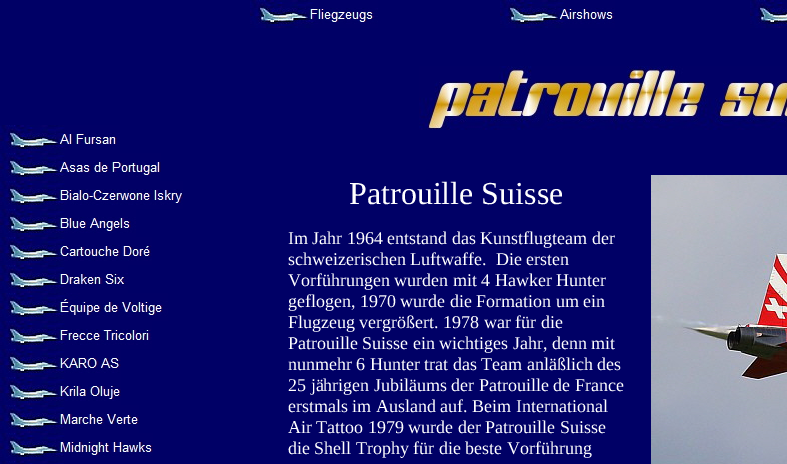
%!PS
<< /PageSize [787 464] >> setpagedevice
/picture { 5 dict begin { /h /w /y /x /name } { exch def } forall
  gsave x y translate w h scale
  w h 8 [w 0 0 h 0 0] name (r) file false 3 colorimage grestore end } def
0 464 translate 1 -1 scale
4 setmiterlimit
0 0 0.4 setrgbcolor
0 0 787 464 rectfill
(img1.rgb) 250 0 128 28 picture
(img2.rgb) 500 0 115 28 picture
(img3.rgb) 750 0 37 28 picture
(img4.rgb) 0 125 120 28 picture
(img5.rgb) 0 153 161 28 picture
(img6.rgb) 0 181 183 28 picture
(img7.rgb) 0 209 136 28 picture
(img8.rgb) 0 237 152 28 picture
(img9.rgb) 0 265 128 28 picture
(img10.rgb) 0 293 168 28 picture
(img11.rgb) 0 321 152 28 picture
(img12.rgb) 0 349 121 28 picture
(img13.rgb) 0 377 121 28 picture
(img14.rgb) 0 405 139 28 picture
(img15.rgb) 0 433 153 28 picture
(img16.rgb) 0 461 64 3 picture
(img17.rgb) 419 66 368 64 picture
/LiberationSerif-Regular [32 0 0 -32 0 0] selectfont
1 setgray
349 204 moveto (Patrouille Suisse) show
/LiberationSerif-Regular [18 0 0 -18 0 0] selectfont
288 244 moveto (Im Jahr 1964 entstand das Kunstflugteam der) show
288 265 moveto (schweizerischen Luftwaffe.  Die ersten) show
288 286 moveto (Vorführungen wurden mit 4 Hawker Hunter) show
288 307 moveto (geflogen, 1970 wurde die Formation um ein) show
288 328 moveto (Flugzeug vergrößert. 1978 war für die) show
288 349 moveto (Patrouille Suisse ein wichtiges Jahr, denn mit) show
288 370 moveto (nunmehr 6 Hunter trat das Team anläßlich des) show
288 391 moveto (25 jährigen Jubiläums der Patrouille de France) show
288 412 moveto (erstmals im Ausland auf. Beim International) show
288 433 moveto (Air Tattoo 1979 wurde der Patrouille Suisse) show
288 454 moveto (die Shell Trophy für die beste Vorführung) show
(img18.rgb) 651 175 136 289 picture
showpage
